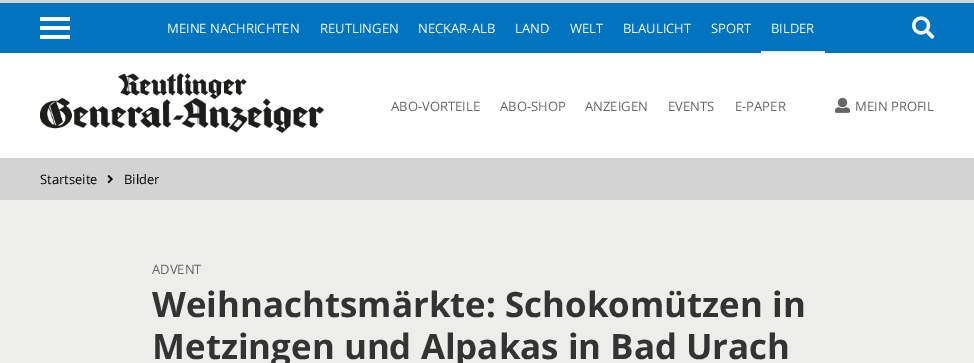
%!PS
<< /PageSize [974 363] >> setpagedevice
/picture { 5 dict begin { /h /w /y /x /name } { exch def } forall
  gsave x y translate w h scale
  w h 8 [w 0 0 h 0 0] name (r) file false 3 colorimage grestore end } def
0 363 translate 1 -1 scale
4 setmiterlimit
0.827 0.827 0.831 setrgbcolor
0 0 974 363 rectfill
0.929 0.929 0.925 setrgbcolor
0 200 974 163 rectfill
1 setgray
0 53 974 105 rectfill
0 0.455 0.745 setrgbcolor
0 3 974 50 rectfill
1 setgray
40 26 30 4 rectfill
40 17 30 4 rectfill
40 35 30 4 rectfill
/OpenSans-Regular [13 0 0 -13 0 0] selectfont
167 33 moveto (MEINE NACHRICHTEN) show
320 33 moveto (REUTLINGEN) show
418 33 moveto (NECKAR-ALB) show
515 33 moveto (LAND) show
570 33 moveto (WELT) show
623 33 moveto (BLAULICHT) show
711 33 moveto (SPORT) show
771 33 moveto (BILDER) show
0.929 0.929 0.925 setrgbcolor
761 51 64 2 rectfill
(img1.rgb) 912 16 23 23 picture
(img2.rgb) 40 73 284 60 picture
0.4 setgray
391 111 moveto (ABO-VORTEILE) show
500 111 moveto (ABO-SHOP) show
585 111 moveto (ANZEIGEN) show
668 111 moveto (EVENTS) show
735 111 moveto (E-PAPER) show
(img3.rgb) 835 97 15 16 picture
855 111 moveto (MEIN PROFIL) show
0 setgray
40 184 moveto (Startseite) show
(img4.rgb) 107 175 6 9 picture
124 184 moveto (Bilder) show
0.4 setgray
152 274 moveto (ADVENT) show
/OpenSans-Bold [34.9 0 0 -34.9 0 0] selectfont
0.2 setgray
152 317 moveto (Weihnachtsmärkte: Schokomützen in) show
152 359 moveto (Metzingen und Alpakas in Bad Urach) show
showpage
